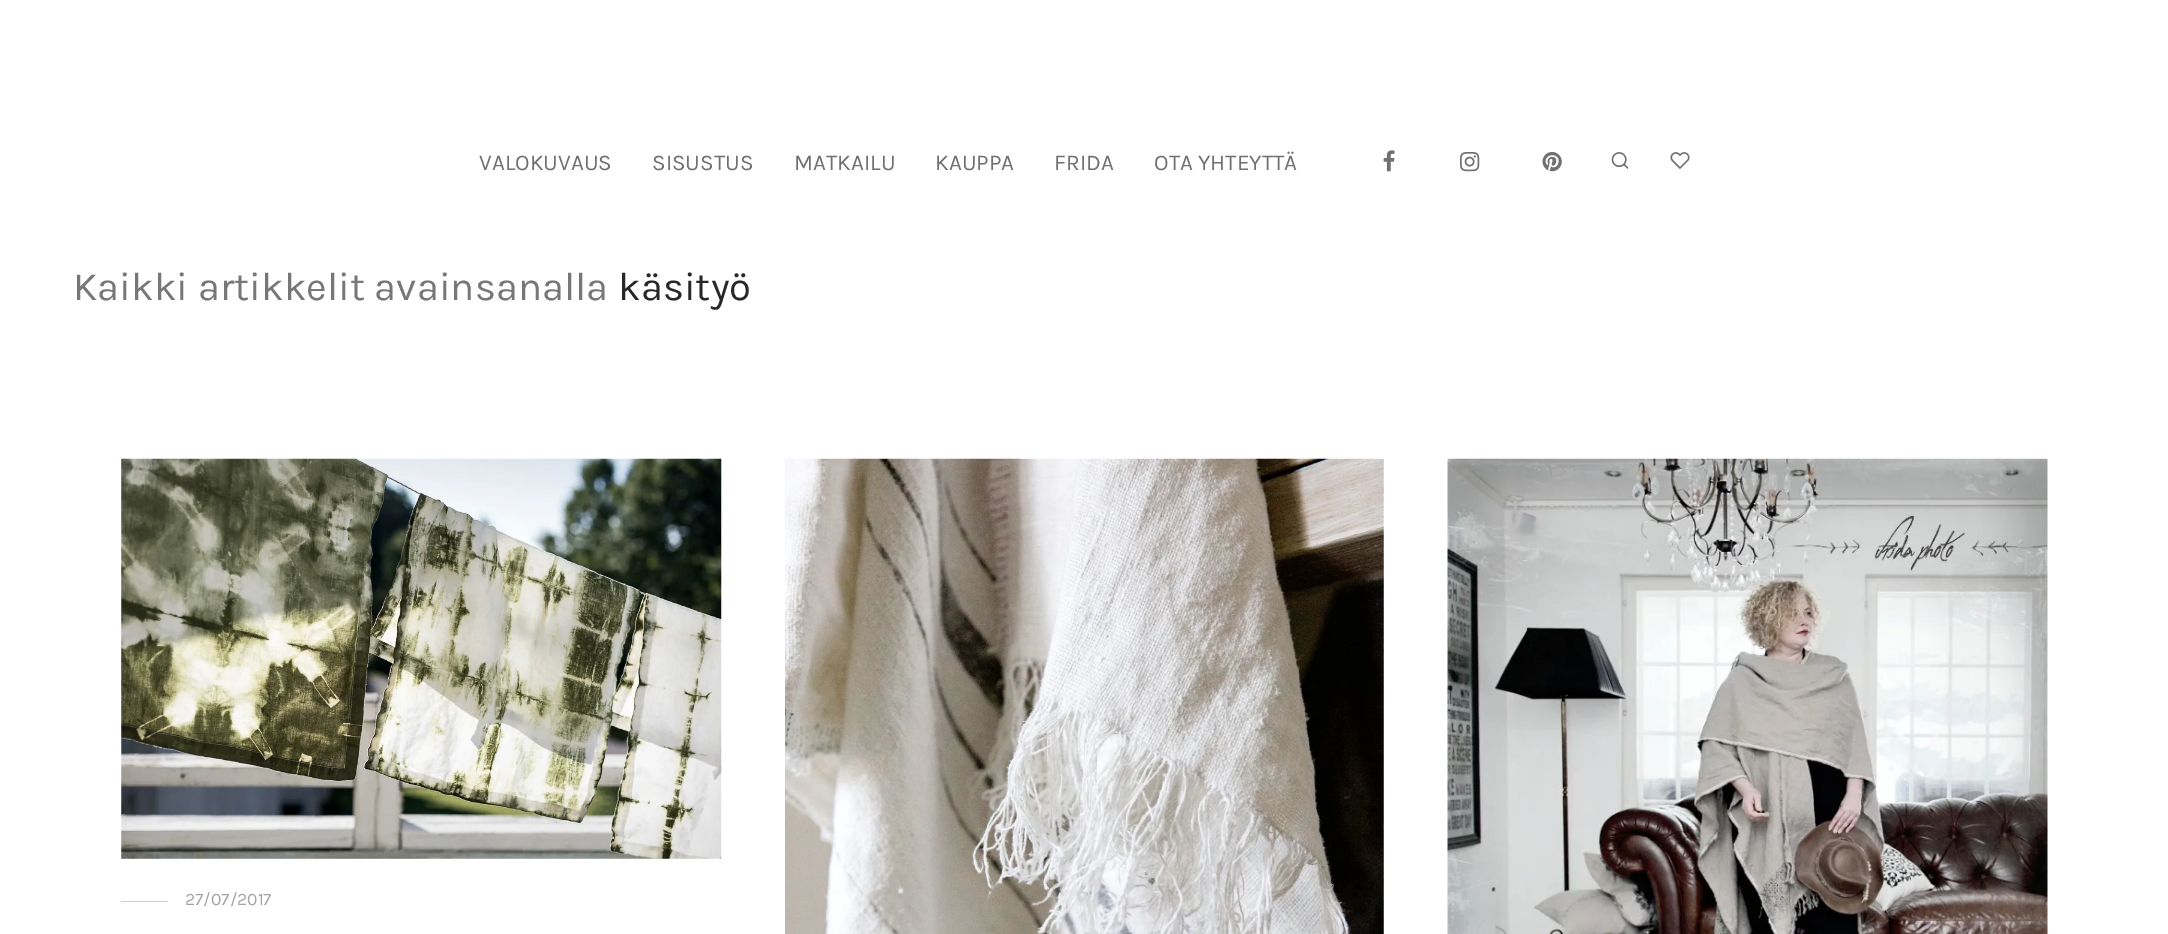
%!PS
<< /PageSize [2168 934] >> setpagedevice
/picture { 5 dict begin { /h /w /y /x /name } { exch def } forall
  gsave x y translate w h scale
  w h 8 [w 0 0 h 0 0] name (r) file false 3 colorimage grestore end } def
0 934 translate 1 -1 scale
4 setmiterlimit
1 setgray
0 0 2168 934 rectfill
/Karla-Regular [22.5 0 0 -22.5 0 0] selectfont
0.439 setgray
479 170 moveto (VALOKUVAUS) show
652 170 moveto (SISUSTUS) show
794 170 moveto (MATKAILU) show
935 170 moveto (KAUPPA) show
1054 170 moveto (FRIDA) show
1154 170 moveto (OTA YHTEYTTÄ) show
(img1.rgb) 1383 150 12 22 picture
(img2.rgb) 1460 151 20 21 picture
(img3.rgb) 1542 152 20 20 picture
(img4.rgb) 1611 152 18 17 picture
(img5.rgb) 1670 152 20 17 picture
/Karla-Regular [40 0 0 -40 0 0] selectfont
0.467 setgray
73 300 moveto (Kaikki artikkelit avainsanalla) show
0.157 setgray
618 300 moveto (käsityö) show
(img6.rgb) 121 458 601 401 picture
0.8 setgray
121 901 47 1 rectfill
/Karla-Regular [17.5 0 0 -17.5 0 0] selectfont
0.639 setgray
185 905 moveto (27/07/2017) show
(img7.rgb) 785 458 599 476 picture
(img8.rgb) 1447 458 601 476 picture
showpage
